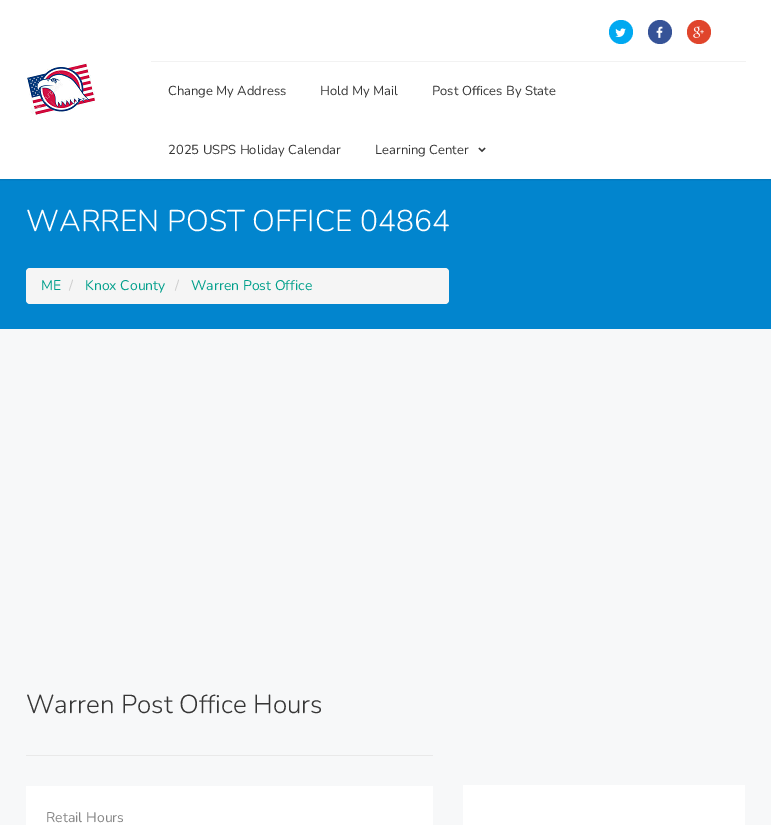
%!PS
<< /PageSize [771 825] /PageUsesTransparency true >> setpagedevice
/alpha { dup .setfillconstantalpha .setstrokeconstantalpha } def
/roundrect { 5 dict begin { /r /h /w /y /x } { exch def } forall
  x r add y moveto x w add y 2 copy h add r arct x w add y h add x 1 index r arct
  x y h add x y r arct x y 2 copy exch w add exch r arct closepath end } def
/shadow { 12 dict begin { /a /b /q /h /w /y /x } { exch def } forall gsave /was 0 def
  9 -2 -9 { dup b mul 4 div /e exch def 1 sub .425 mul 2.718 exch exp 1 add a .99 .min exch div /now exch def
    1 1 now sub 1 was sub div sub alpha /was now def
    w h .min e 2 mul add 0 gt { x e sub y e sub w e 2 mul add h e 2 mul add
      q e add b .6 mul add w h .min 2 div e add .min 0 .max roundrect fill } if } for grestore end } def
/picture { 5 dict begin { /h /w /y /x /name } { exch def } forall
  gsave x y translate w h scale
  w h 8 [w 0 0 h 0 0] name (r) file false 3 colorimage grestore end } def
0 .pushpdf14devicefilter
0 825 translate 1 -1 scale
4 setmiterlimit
0.969 0.973 0.976 setrgbcolor
0 0 771 825 rectfill
0.008 0.522 0.808 setrgbcolor
0 179 771 150 rectfill
0 setgray
0 1 771 179 0 0.5 0.1 shadow
1 setgray
0 0 771 179 rectfill
(img1.rgb) 27 63 68 52 picture
0.949 setgray
151 61 595 1 rectfill
0 0.663 0.945 setrgbcolor
newpath 621 32 12 0 360 arc closepath fill
(img2.rgb) 615 28 11 9 picture
0.212 0.325 0.592 setrgbcolor
newpath 660 32 12 0 360 arc closepath fill
(img3.rgb) 656 26 7 12 picture
0.878 0.271 0.173 setrgbcolor
newpath 699 32 12 0 360 arc closepath fill
(img4.rgb) 693 26 11 12 picture
/Nunito-Regular [13 0 0 -13 0 0] selectfont
0.212 setgray
168 95 moveto (Change My Address) show
320 95 moveto (Hold My Mail) show
432 95 moveto (Post Offices By State) show
168 154 moveto (2025 USPS Holiday Calendar) show
375 154 moveto (Learning Center) show
(img5.rgb) 478 147 8 6 picture
/Nunito-Light [30 0 0 -30 0 0] selectfont
1 setgray
26 231 moveto (WARREN POST OFFICE 04864) show
0.961 setgray
26 268 423 36 4 roundrect fill
/Nunito-Regular [14 0 0 -14 0 0] selectfont
0 0.624 0.545 setrgbcolor
41 290 moveto (ME) show
0.8 setgray
69 290 moveto (/) show
0 0.624 0.545 setrgbcolor
85 290 moveto (Knox County) show
0.8 setgray
175 290 moveto (/) show
0 0.624 0.545 setrgbcolor
191 290 moveto (Warren Post Office) show
0.914 setgray
26 755 407 1 rectfill
/Nunito-Light [26 0 0 -26 0 0] selectfont
0.212 setgray
26 713 moveto (Warren Post Office Hours) show
1 setgray
26 786 407 39 rectfill
/Nunito-Regular [14 0 0 -14 0 0] selectfont
0.525 setgray
46 822 moveto (Retail Hours) show
1 setgray
463 785 282 40 rectfill
.poppdf14devicefilter showpage
